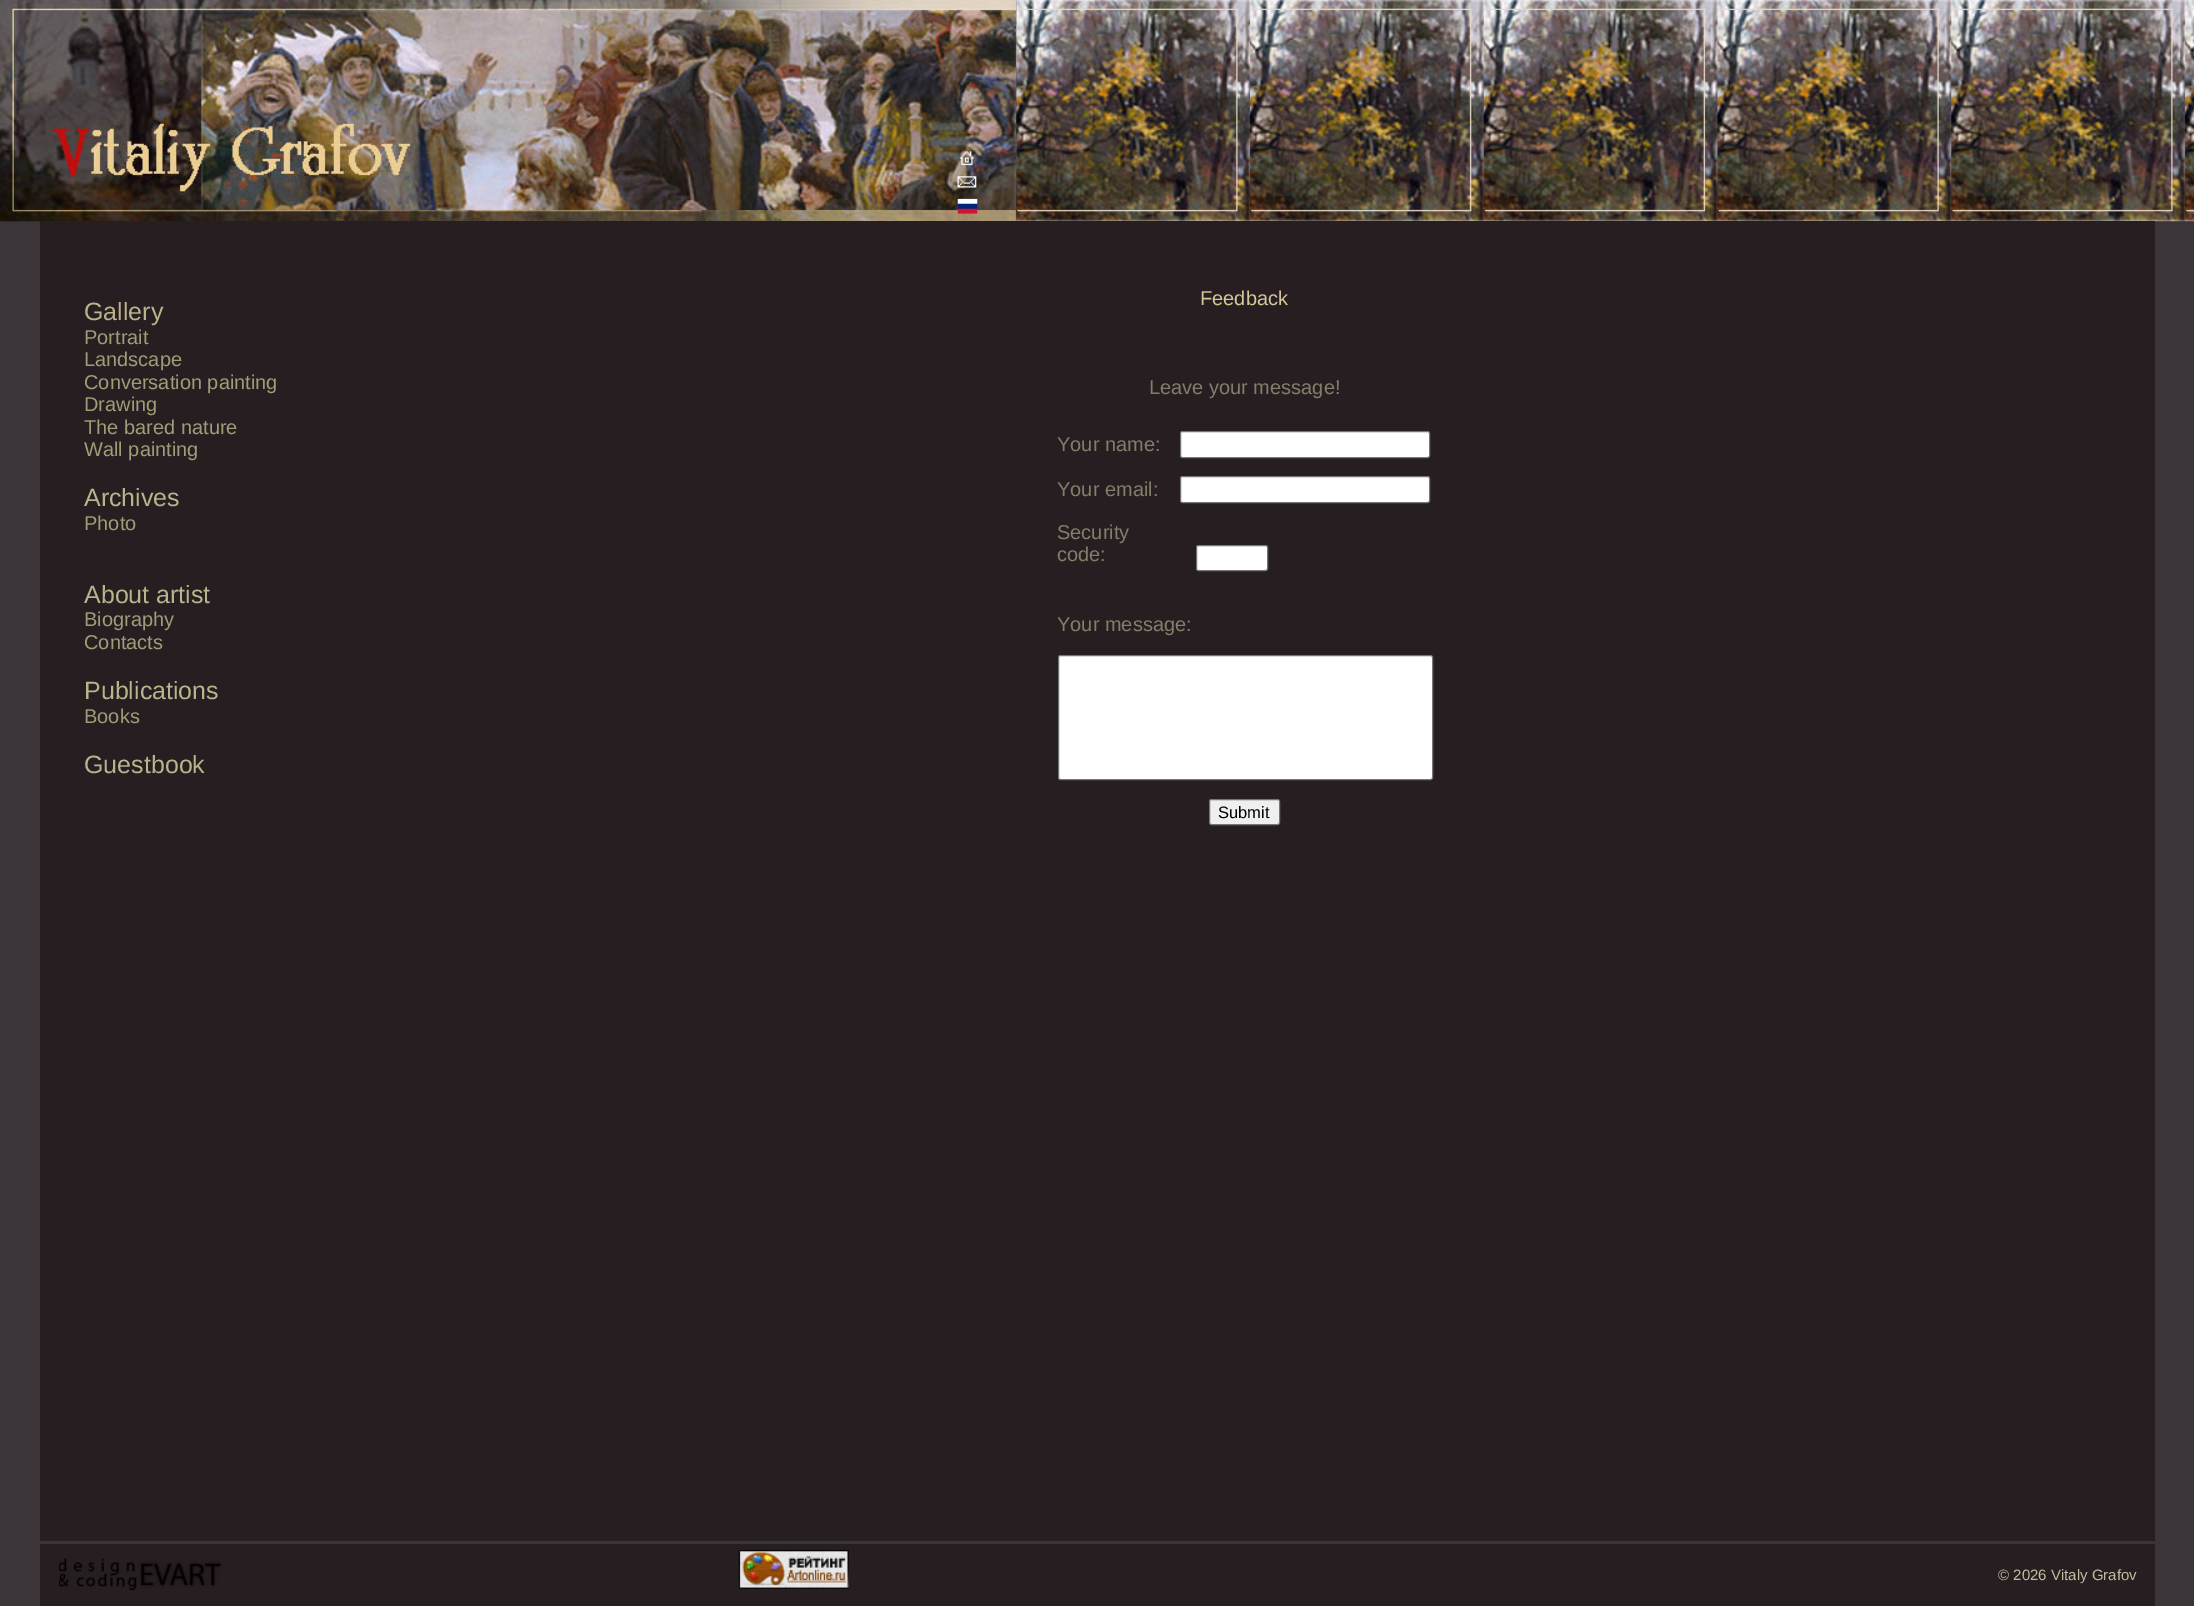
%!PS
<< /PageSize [2194 1606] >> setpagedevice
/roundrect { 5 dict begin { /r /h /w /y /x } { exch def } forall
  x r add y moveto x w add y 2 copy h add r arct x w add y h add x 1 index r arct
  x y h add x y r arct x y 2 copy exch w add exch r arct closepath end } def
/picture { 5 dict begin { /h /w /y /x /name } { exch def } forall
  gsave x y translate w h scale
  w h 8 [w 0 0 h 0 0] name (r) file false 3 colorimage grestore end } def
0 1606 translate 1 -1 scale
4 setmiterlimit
0.231 0.204 0.22 setrgbcolor
0 0 2194 1606 rectfill
(img1.rgb) 0 0 1017 222 picture
(img2.rgb) 959 151 15 15 picture
(img3.rgb) 957 176 20 12 picture
(img4.rgb) 957 198 21 16 picture
(img5.rgb) 1016 0 1178 222 picture
0.153 0.118 0.129 setrgbcolor
40 221 2115 1320 rectfill
/LiberationSans-Regular [25 0 0 -25 0 0] selectfont
0.725 0.706 0.549 setrgbcolor
84 320 moveto (Gallery) show
/LiberationSans-Regular [20 0 0 -20 0 0] selectfont
0.627 0.612 0.467 setrgbcolor
84 344 moveto (Portrait) show
84 366 moveto (Landscape) show
84 389 moveto (Conversation painting) show
84 411 moveto (Drawing) show
84 434 moveto (The bared nature) show
84 456 moveto (Wall painting) show
/LiberationSans-Regular [25 0 0 -25 0 0] selectfont
0.725 0.706 0.549 setrgbcolor
84 506 moveto (Archives) show
/LiberationSans-Regular [20 0 0 -20 0 0] selectfont
0.627 0.612 0.467 setrgbcolor
84 530 moveto (Photo) show
/LiberationSans-Regular [25 0 0 -25 0 0] selectfont
0.725 0.706 0.549 setrgbcolor
84 603 moveto (About artist) show
/LiberationSans-Regular [20 0 0 -20 0 0] selectfont
0.627 0.612 0.467 setrgbcolor
84 626 moveto (Biography) show
84 649 moveto (Contacts) show
/LiberationSans-Regular [25 0 0 -25 0 0] selectfont
0.725 0.706 0.549 setrgbcolor
84 699 moveto (Publications) show
/LiberationSans-Regular [20 0 0 -20 0 0] selectfont
0.627 0.612 0.467 setrgbcolor
84 723 moveto (Books) show
/LiberationSans-Regular [25 0 0 -25 0 0] selectfont
0.725 0.706 0.549 setrgbcolor
84 773 moveto (Guestbook) show
/LiberationSans-Regular [20 0 0 -20 0 0] selectfont
0.827 0.784 0.592 setrgbcolor
1200 305 moveto (Feedback) show
0.506 0.494 0.412 setrgbcolor
1149 394 moveto (Leave your message!) show
1057 451 moveto (Your name:) show
1 setgray
1180.5 431.5 249 26 2 roundrect gsave fill grestore
0.463 setgray
stroke
0.506 0.494 0.412 setrgbcolor
1057 496 moveto (Your email:) show
1 setgray
1180.5 476.5 249 26 2 roundrect gsave fill grestore
0.463 setgray
stroke
0.506 0.494 0.412 setrgbcolor
1057 539 moveto (Security) show
1057 561 moveto (code:) show
1 setgray
1196.5 545.5 71 25 2 roundrect gsave fill grestore
0.463 setgray
stroke
0.506 0.494 0.412 setrgbcolor
1057 631 moveto (Your message:) show
1 setgray
1058.5 655.5 374 124 2 roundrect gsave fill grestore
0.463 setgray
stroke
0.937 setgray
1209.5 799.5 70 25 2 roundrect gsave fill grestore
0.463 setgray
stroke
/LiberationSans-Regular [16.5 0 0 -16.5 0 0] selectfont
0 setgray
1218 818 moveto (Submit) show
0.153 0.118 0.129 setrgbcolor
40 1544 2115 62 rectfill
(img6.rgb) 59 1558 163 33 picture
(img7.rgb) 738 1550 111 39 picture
/LiberationSans-Regular [15 0 0 -15 0 0] selectfont
0.745 0.741 0.616 setrgbcolor
1998 1580 moveto (© 2026 Vitaly Grafov) show
showpage
